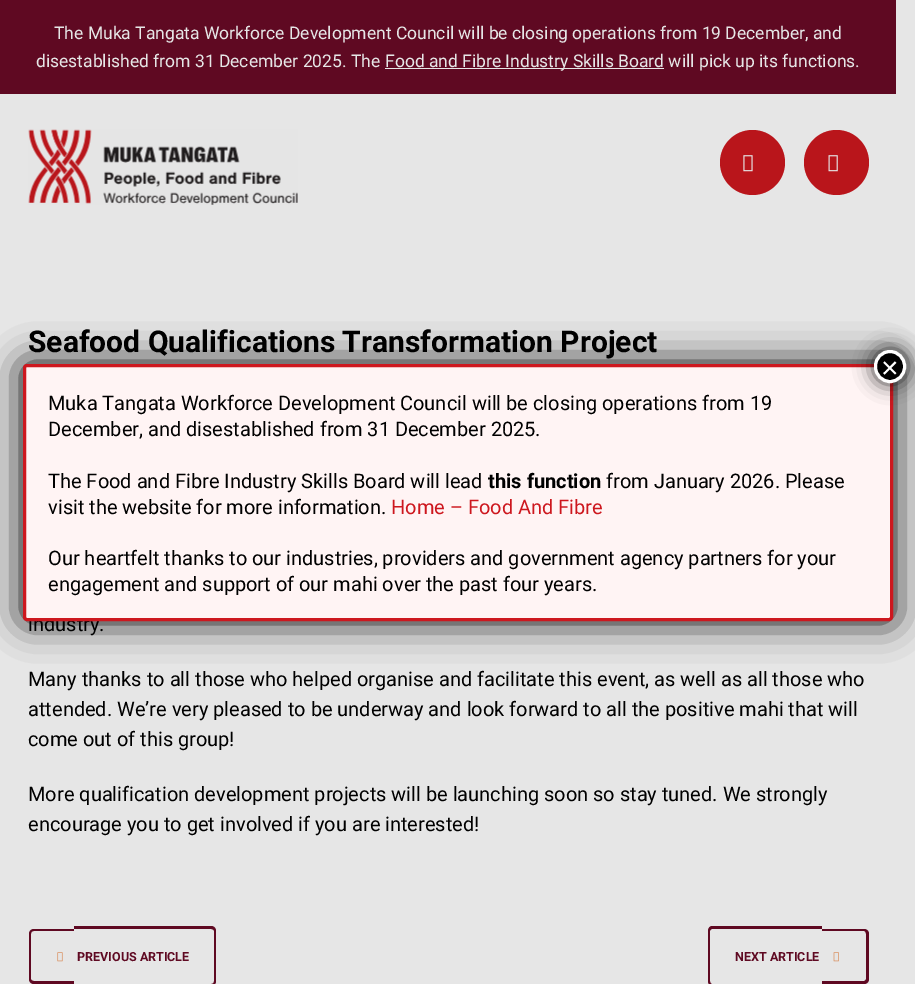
%!PS
<< /PageSize [915 984] /PageUsesTransparency true >> setpagedevice
/alpha { dup .setfillconstantalpha .setstrokeconstantalpha } def
/roundrect { 5 dict begin { /r /h /w /y /x } { exch def } forall
  x r add y moveto x w add y 2 copy h add r arct x w add y h add x 1 index r arct
  x y h add x y r arct x y 2 copy exch w add exch r arct closepath end } def
/shadow { 12 dict begin { /a /b /q /h /w /y /x } { exch def } forall gsave /was 0 def
  9 -2 -9 { dup b mul 4 div /e exch def 1 sub .425 mul 2.718 exch exp 1 add a .99 .min exch div /now exch def
    1 1 now sub 1 was sub div sub alpha /was now def
    w h .min e 2 mul add 0 gt { x e sub y e sub w e 2 mul add h e 2 mul add
      q e add b .6 mul add w h .min 2 div e add .min 0 .max roundrect fill } if } for grestore end } def
/picture { 5 dict begin { /h /w /y /x /name } { exch def } forall
  gsave x y translate w h scale
  w h 8 [w 0 0 h 0 0] name (r) file false 3 colorimage grestore end } def
0 .pushpdf14devicefilter
0 984 translate 1 -1 scale
4 setmiterlimit
0.902 setgray
0 0 915 984 rectfill
0.373 0.035 0.133 setrgbcolor
0 0 896 94 rectfill
/Roboto-Regular [17.5 0 0 -17.5 0 0] selectfont
0.902 setgray
54 39 moveto (The Muka Tangata Workforce Development Council will be closing operations from 19 December, and) show
36 67 moveto (disestablished from 31 December 2025. The) show
385 68 279 1 rectfill
385 67 moveto (Food and Fibre Industry Skills Board will pick up its functions.) show
(img1.rgb) 28 129 270 76 picture
0.725 0.082 0.106 setrgbcolor
newpath 752.5 162.5 32.5 0 360 arc closepath fill
(img2.rgb) 743 155 10 17 picture
newpath 836.5 162.5 32.5 0 360 arc closepath fill
(img3.rgb) 828 155 10 17 picture
/Roboto-Bold [30 0 0 -30 0 0] selectfont
0 setgray
28 352 moveto (Seafood Qualifications Transformation Project) show
/Roboto-Regular [20 0 0 -20 0 0] selectfont
28 631 moveto (industry.) show
28 686 moveto (Many thanks to all those who helped organise and facilitate this event, as well as all those who) show
28 716 moveto (attended. We’re very pleased to be underway and look forward to all the positive mahi that will) show
28 746 moveto (come out of this group!) show
28 801 moveto (More qualification development projects will be launching soon so stay tuned. We strongly) show
28 831 moveto (encourage you to get involved if you are interested!) show
0.373 0.035 0.133 setrgbcolor
newpath 34 929 moveto 74 929 lineto 74 984 lineto 34 984 lineto 31 984 29 982 29 979 curveto 29 934 lineto 29 931 31 929 34 929 curveto closepath 34 931 moveto 74 931 lineto 74 981 lineto 34 981 lineto 32 981 31 980 31 979 curveto 31 934 lineto 31 932 32 931 34 931 curveto closepath eofill
newpath 74 926 moveto 211 926 lineto 214 926 216 928 216 931 curveto 216 981 lineto 216 984 214 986 211 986 curveto 74 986 lineto closepath 74 929 moveto 211 929 lineto 213 929 214 930 214 931 curveto 214 981 lineto 214 983 213 984 211 984 curveto 74 984 lineto closepath eofill
(img4.rgb) 57 952 6 10 picture
/Roboto-Bold [12.5 0 0 -12.5 0 0] selectfont
77 961 moveto (PREVIOUS ARTICLE) show
newpath 712 926 moveto 822 926 lineto 822 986 lineto 712 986 lineto 710 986 708 984 708 981 curveto 708 931 lineto 708 928 710 926 712 926 curveto closepath 712 929 moveto 822 929 lineto 822 984 lineto 712 984 lineto 711 984 710 983 710 981 curveto 710 931 lineto 710 930 711 929 712 929 curveto closepath eofill
newpath 822 929 moveto 864 929 lineto 867 929 869 931 869 934 curveto 869 979 lineto 869 982 867 984 864 984 curveto 822 984 lineto closepath 822 931 moveto 864 931 lineto 865 931 866 932 866 934 curveto 866 979 lineto 866 980 865 981 864 981 curveto 822 981 lineto closepath eofill
735 961 moveto (NEXT ARTICLE) show
(img5.rgb) 833 952 6 10 picture
0.008 setgray
23 364 870 257 4 19 1 shadow
1 0.957 0.957 setrgbcolor
24.5 365.5 867 254 2.5 roundrect gsave fill grestore
0.804 0.09 0.118 setrgbcolor
3 setlinewidth
stroke
0.008 setgray
873 349 35 35 17.5 9.5 0.75 shadow
0 setgray
875.5 351.5 29 30 14.5 roundrect gsave fill grestore
1 setgray
stroke
/LiberationSans-Regular [30 0 0 -30 0 0] selectfont
881 378 moveto (×) show
/Roboto-Regular [20 0 0 -20 0 0] selectfont
0 setgray
48 410 moveto (Muka Tangata Workforce Development Council will be closing operations from 19) show
48 436 moveto (December, and disestablished from 31 December 2025.) show
48 488 moveto (The Food and Fibre Industry Skills Board will lead) show
/Roboto-Bold [20 0 0 -20 0 0] selectfont
488 488 moveto (this function) show
/Roboto-Regular [20 0 0 -20 0 0] selectfont
606 488 moveto (from January 2026. Please) show
48 514 moveto (visit the website for more information.) show
0.804 0.09 0.118 setrgbcolor
391 514 moveto (Home – Food And Fibre) show
0 setgray
48 565 moveto (Our heartfelt thanks to our industries, providers and government agency partners for your) show
48 591 moveto (engagement and support of our mahi over the past four years.) show
.poppdf14devicefilter showpage
